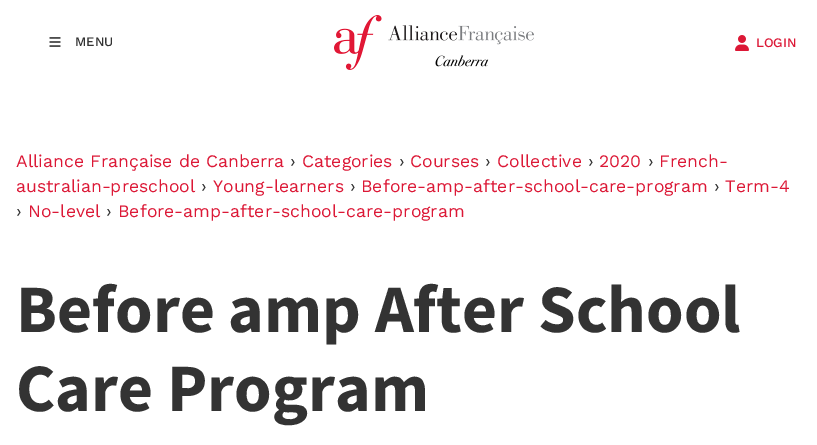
%!PS
<< /PageSize [817 445] >> setpagedevice
/picture { 5 dict begin { /h /w /y /x /name } { exch def } forall
  gsave x y translate w h scale
  w h 8 [w 0 0 h 0 0] name (r) file false 3 colorimage grestore end } def
0 445 translate 1 -1 scale
4 setmiterlimit
1 setgray
0 0 817 445 rectfill
(img1.rgb) 49 37 12 10 picture
/WorkSans-Medium [13 0 0 -13 0 0] selectfont
0.2 setgray
75 46 moveto (MENU) show
(img2.rgb) 334 15 200 55 picture
(img3.rgb) 735 35 14 16 picture
0.863 0.094 0.212 setrgbcolor
756 47 moveto (LOGIN) show
/WorkSans-Regular [17.6 0 0 -17.6 0 0] selectfont
16 167 moveto (Alliance Française de Canberra) show
0.2 setgray
290 167 moveto (›) show
0.863 0.094 0.212 setrgbcolor
302 167 moveto (Categories) show
0.2 setgray
399 167 moveto (›) show
0.863 0.094 0.212 setrgbcolor
410 167 moveto (Courses) show
0.2 setgray
485 167 moveto (›) show
0.863 0.094 0.212 setrgbcolor
497 167 moveto (Collective) show
0.2 setgray
588 167 moveto (›) show
0.863 0.094 0.212 setrgbcolor
599 167 moveto (2020) show
0.2 setgray
648 167 moveto (›) show
0.863 0.094 0.212 setrgbcolor
659 167 moveto (French-) show
16 192 moveto (australian-preschool) show
0.2 setgray
201 192 moveto (›) show
0.863 0.094 0.212 setrgbcolor
213 192 moveto (Young-learners) show
0.2 setgray
350 192 moveto (›) show
0.863 0.094 0.212 setrgbcolor
361 192 moveto (Before-amp-after-school-care-program) show
0.2 setgray
714 192 moveto (›) show
0.863 0.094 0.212 setrgbcolor
725 192 moveto (Term-4) show
0.2 setgray
16 217 moveto (›) show
0.863 0.094 0.212 setrgbcolor
28 217 moveto (No-level) show
0.2 setgray
106 217 moveto (›) show
0.863 0.094 0.212 setrgbcolor
118 217 moveto (Before-amp-after-school-care-program) show
/Mada-Bold [67.75 0 0 -67.75 0 0] selectfont
0.2 setgray
16 332 moveto (Before amp After School) show
16 411 moveto (Care Program) show
showpage
